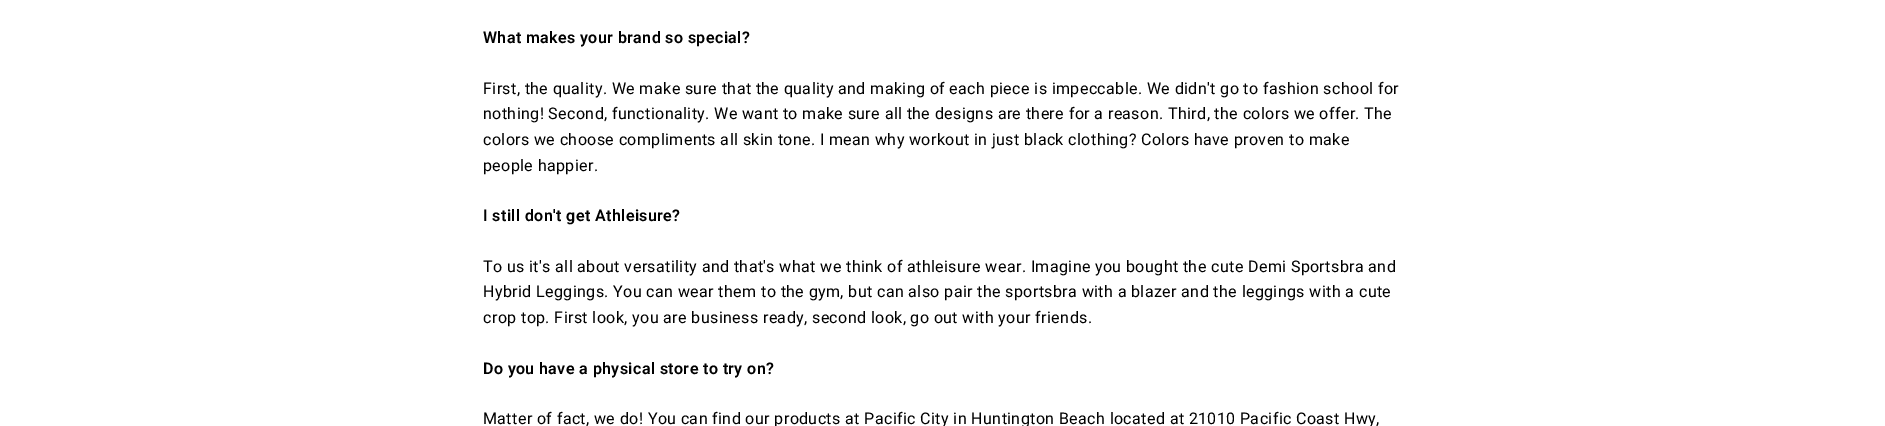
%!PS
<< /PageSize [1885 426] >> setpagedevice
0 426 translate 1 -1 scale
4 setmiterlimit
1 setgray
0 0 1885 426 rectfill
/Roboto-SemiBold [16 0 0 -16 0 0] selectfont
0 setgray
483 43 moveto 0.4 0 (What makes your brand so special?) ashow
/Roboto-Regular [16 0 0 -16 0 0] selectfont
483 94 moveto 0.4 0 (First, the quality. We make sure that the quality and making of each piece is impeccable. We didn't go to fashion school for) ashow
483 119 moveto 0.4 0 (nothing! Second, functionality. We want to make sure all the designs are there for a reason. Third, the colors we offer. The) ashow
483 145 moveto 0.4 0 (colors we choose compliments all skin tone. I mean why workout in just black clothing? Colors have proven to make) ashow
483 171 moveto 0.4 0 (people happier.) ashow
/Roboto-SemiBold [16 0 0 -16 0 0] selectfont
483 221 moveto 0.4 0 (I still don't get Athleisure?) ashow
/Roboto-Regular [16 0 0 -16 0 0] selectfont
483 272 moveto 0.4 0 (To us it's all about versatility and that's what we think of athleisure wear. Imagine you bought the cute Demi Sportsbra and) ashow
483 297 moveto 0.4 0 (Hybrid Leggings. You can wear them to the gym, but can also pair the sportsbra with a blazer and the leggings with a cute) ashow
483 323 moveto 0.4 0 (crop top. First look, you are business ready, second look, go out with your friends.) ashow
/Roboto-SemiBold [16 0 0 -16 0 0] selectfont
483 374 moveto 0.4 0 (Do you have a physical store to try on?) ashow
/Roboto-Regular [16 0 0 -16 0 0] selectfont
483 424 moveto 0.4 0 (Matter of fact, we do! You can find our products at Pacific City in Huntington Beach located at 21010 Pacific Coast Hwy,) ashow
showpage
